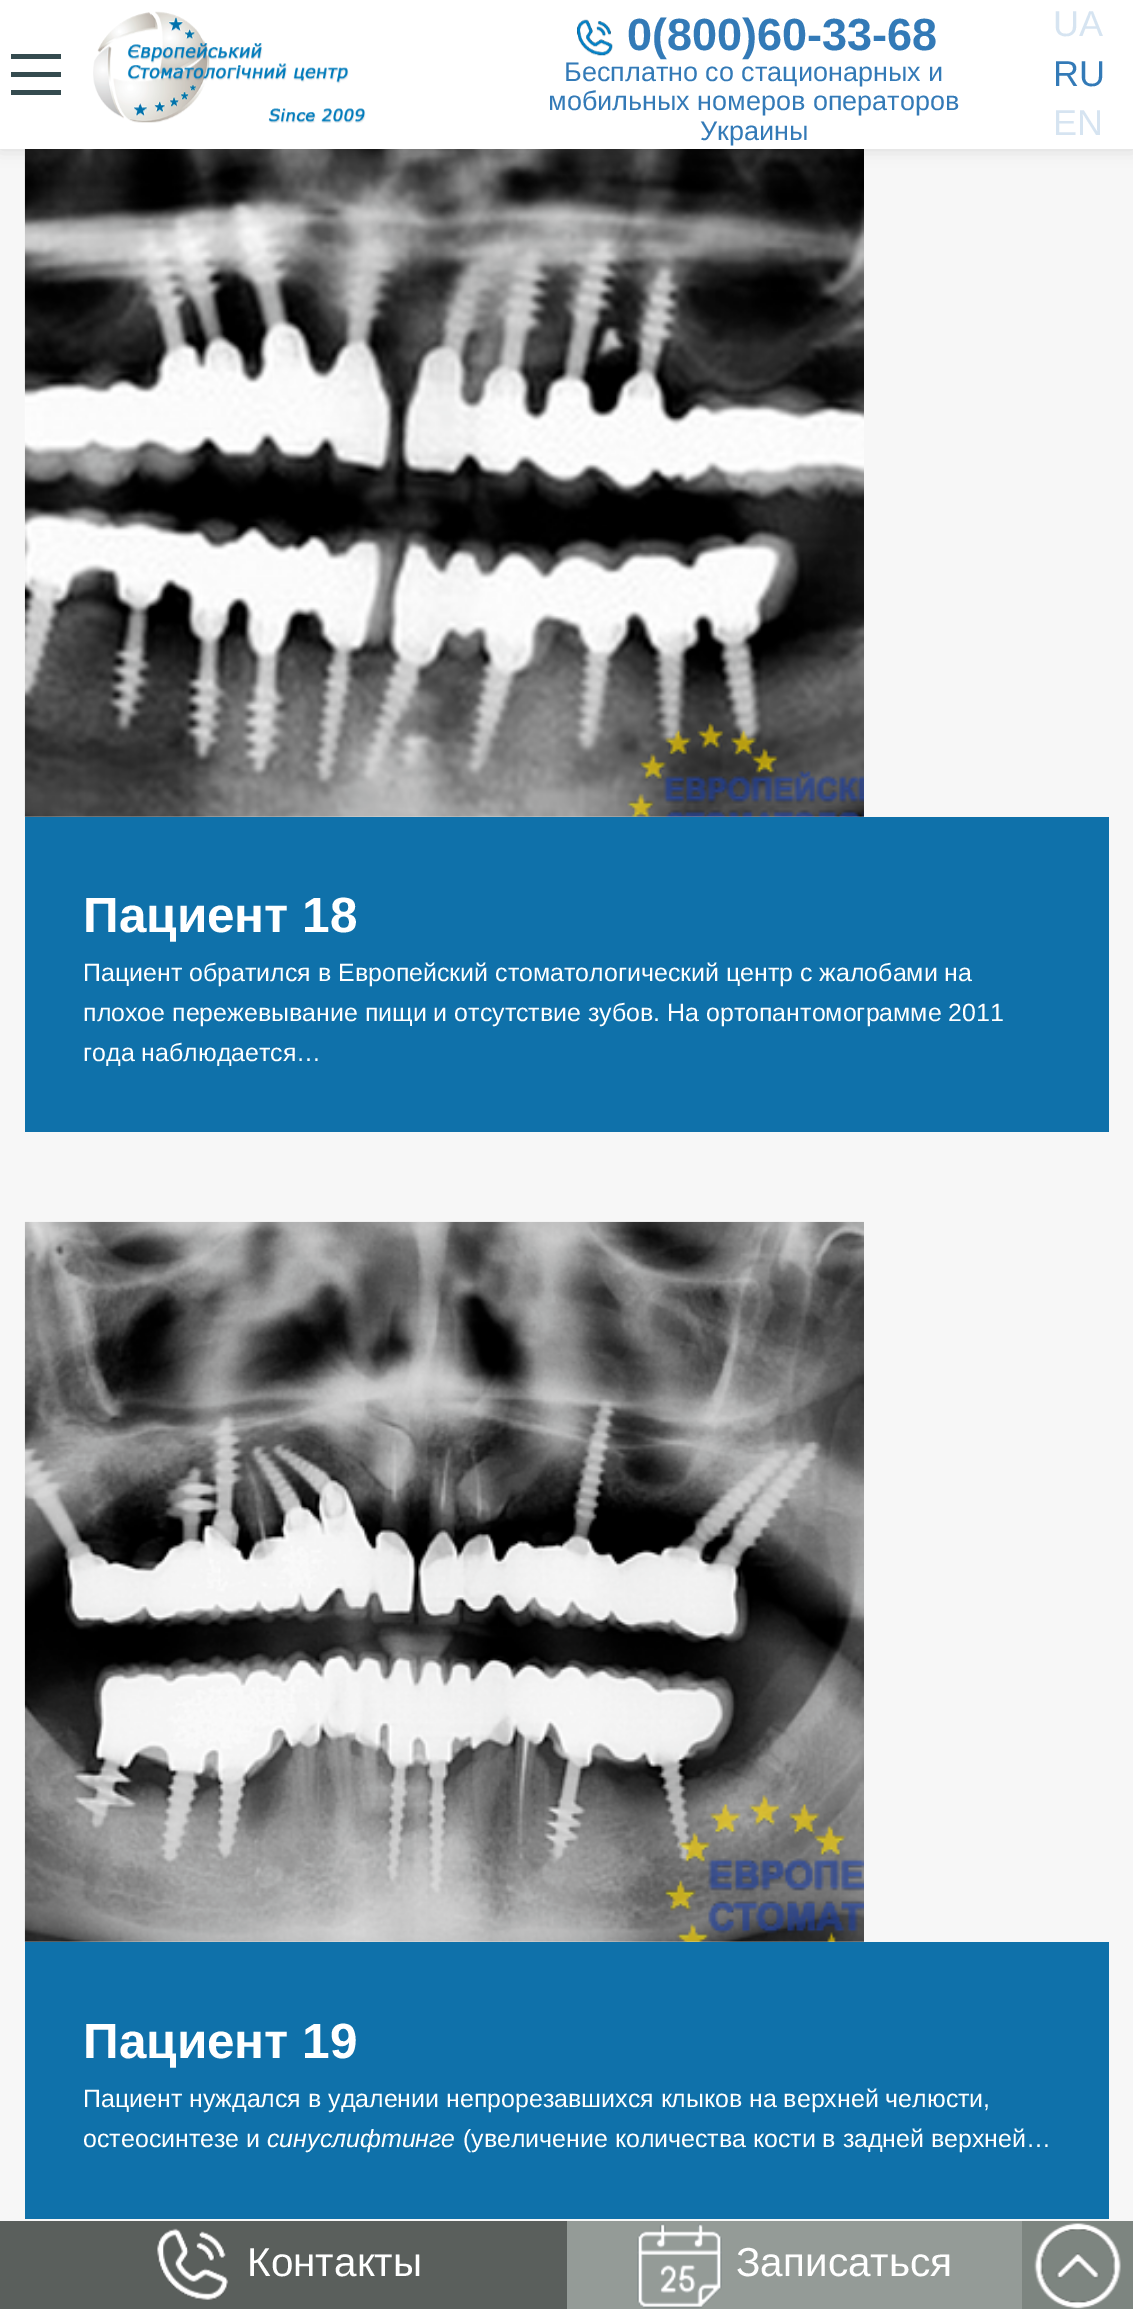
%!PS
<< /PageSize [1133 2309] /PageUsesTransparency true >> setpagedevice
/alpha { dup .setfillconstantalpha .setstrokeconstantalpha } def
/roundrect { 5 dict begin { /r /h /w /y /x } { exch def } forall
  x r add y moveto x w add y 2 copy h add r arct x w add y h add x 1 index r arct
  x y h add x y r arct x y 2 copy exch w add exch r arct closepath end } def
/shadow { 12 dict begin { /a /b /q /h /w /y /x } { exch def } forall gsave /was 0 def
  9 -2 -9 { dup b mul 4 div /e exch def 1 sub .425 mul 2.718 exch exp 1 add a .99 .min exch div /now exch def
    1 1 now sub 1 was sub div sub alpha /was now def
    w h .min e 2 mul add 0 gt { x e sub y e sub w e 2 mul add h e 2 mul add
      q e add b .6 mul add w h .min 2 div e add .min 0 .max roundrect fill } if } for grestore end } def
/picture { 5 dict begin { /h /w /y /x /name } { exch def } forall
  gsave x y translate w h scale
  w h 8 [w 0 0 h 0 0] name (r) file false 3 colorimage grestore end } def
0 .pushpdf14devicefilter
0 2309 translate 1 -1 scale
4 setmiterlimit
0.969 setgray
0 0 1133 2309 rectfill
(img3.rgb) 24 149 840 668 picture
0 setgray
0 0 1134 149 0 8.5 0.12 shadow
1 setgray
0 0 1133 149 rectfill
0.208 0.294 0.31 setrgbcolor
11 54 50 5 rectfill
11 72 50 5 rectfill
11 90 50 5 rectfill
(img1.rgb) 93 11 273 112 picture
(img2.rgb) 577 19 36 37 picture
/LiberationSans-Bold [45 0 0 -45 0 0] selectfont
0.2 0.478 0.718 setrgbcolor
627 50 moveto (0\(800\)60-33-68) show
/LiberationSans-Regular [27 0 0 -27 0 0] selectfont
564 81 moveto (Бесплатно со стационарных и) show
548 110 moveto (мобильных номеров операторов) show
700 140 moveto (Украины) show
/LiberationSans-Regular [36 0 0 -36 0 0] selectfont
0.839 0.894 0.945 setrgbcolor
1053 36 moveto (UA) show
0.2 0.478 0.718 setrgbcolor
1053 86 moveto (RU) show
0.839 0.894 0.945 setrgbcolor
1053 135 moveto (EN) show
0.059 0.443 0.667 setrgbcolor
25 817 1084 315 rectfill
/LiberationSans-Bold [49.5 0 0 -49.5 0 0] selectfont
1 setgray
83 932 moveto (Пациент 18) show
/LiberationSans-Regular [24.95 0 0 -24.95 0 0] selectfont
83 981 moveto (Пациент обратился в Европейский стоматологический центр с жалобами на) show
83 1021 moveto (плохое пережевывание пищи и отсутствие зубов. На ортопантомограмме 2011) show
83 1061 moveto (года наблюдается…) show
(img4.rgb) 24 1221 840 721 picture
0.059 0.443 0.667 setrgbcolor
25 1942 1084 277 rectfill
/LiberationSans-Bold [49.5 0 0 -49.5 0 0] selectfont
1 setgray
83 2058 moveto (Пациент 19) show
/LiberationSans-Regular [24.95 0 0 -24.95 0 0] selectfont
83 2107 moveto (Пациент нуждался в удалении непрорезавшихся клыков на верхней челюсти,) show
83 2147 moveto (остеосинтезе и) show
/LiberationSans-Italic [24.95 0 0 -24.95 0 0] selectfont
267 2147 moveto (синуслифтинге) show
/LiberationSans-Regular [24.95 0 0 -24.95 0 0] selectfont
463 2147 moveto (\(увеличение количества кости в задней верхней…) show
0.353 0.373 0.361 setrgbcolor
0 2221 567 88 rectfill
(img5.rgb) 157 2228 72 72 picture
/LiberationSans-Regular [40.5 0 0 -40.5 0 0] selectfont
1 setgray
247 2276 moveto (Контакты) show
0.58 0.608 0.592 setrgbcolor
567 2221 455 88 rectfill
(img6.rgb) 637 2223 85 86 picture
1 setgray
736 2276 moveto (Записаться) show
0.49 0.522 0.502 setrgbcolor
1022 2221 111 88 rectfill
(img7.rgb) 1034 2223 87 86 picture
.poppdf14devicefilter showpage
